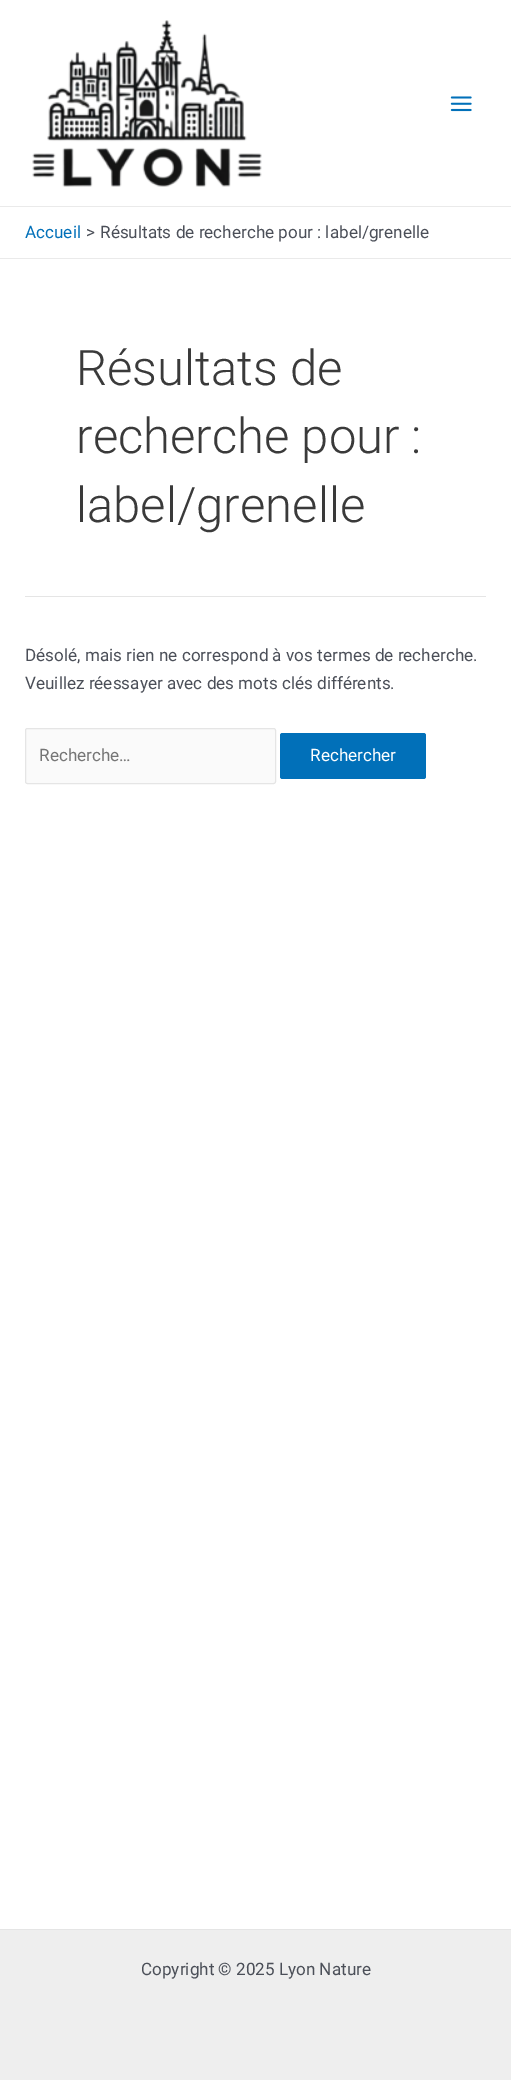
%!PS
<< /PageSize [511 2080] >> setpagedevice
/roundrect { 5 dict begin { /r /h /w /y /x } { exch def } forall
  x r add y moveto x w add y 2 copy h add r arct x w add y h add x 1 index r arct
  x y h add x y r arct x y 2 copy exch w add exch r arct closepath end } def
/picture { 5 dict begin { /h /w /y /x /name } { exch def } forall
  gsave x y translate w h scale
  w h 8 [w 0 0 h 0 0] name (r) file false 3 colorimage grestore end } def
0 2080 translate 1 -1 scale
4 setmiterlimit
1 setgray
0 0 511 2080 rectfill
0.918 setgray
0 206 511 1 rectfill
(img1.rgb) 32 20 230 167 picture
(img2.rgb) 450 96 22 16 picture
0 258 511 1 rectfill
/Roboto-Regular [17.1 0 0 -17.1 0 0] selectfont
0.004 0.439 0.725 setrgbcolor
25 238 moveto (Accueil) show
0.294 0.31 0.345 setrgbcolor
86 238 moveto (>) show
100 238 moveto (Résultats de recherche pour : label/grenelle) show
0.898 setgray
25 596 461 1 rectfill
/Roboto-Light [49 0 0 -49 0 0] selectfont
0.227 setgray
76 385 moveto (Résultats de) show
76 453 moveto (recherche pour :) show
76 522 moveto (label/grenelle) show
/Roboto-Regular [17.1 0 0 -17.1 0 0] selectfont
0.294 0.31 0.345 setrgbcolor
25 661 moveto (Désolé, mais rien ne correspond à vos termes de recherche.) show
25 689 moveto (Veuillez réessayer avec des mots clés différents.) show
0.98 setgray
25.5 728.5 250 55 2 roundrect gsave fill grestore
0.898 setgray
stroke
0.459 setgray
39 761 moveto (Recherche…) show
0.004 0.439 0.725 setrgbcolor
280 733 146 46 2.5 roundrect fill
1 setgray
310 761 moveto (Rechercher) show
0.933 setgray
0 1930 511 150 rectfill
0.898 setgray
0 1929 511 1 rectfill
0.294 0.31 0.345 setrgbcolor
141 1975 moveto (Copyright © 2025 Lyon Nature) show
showpage
